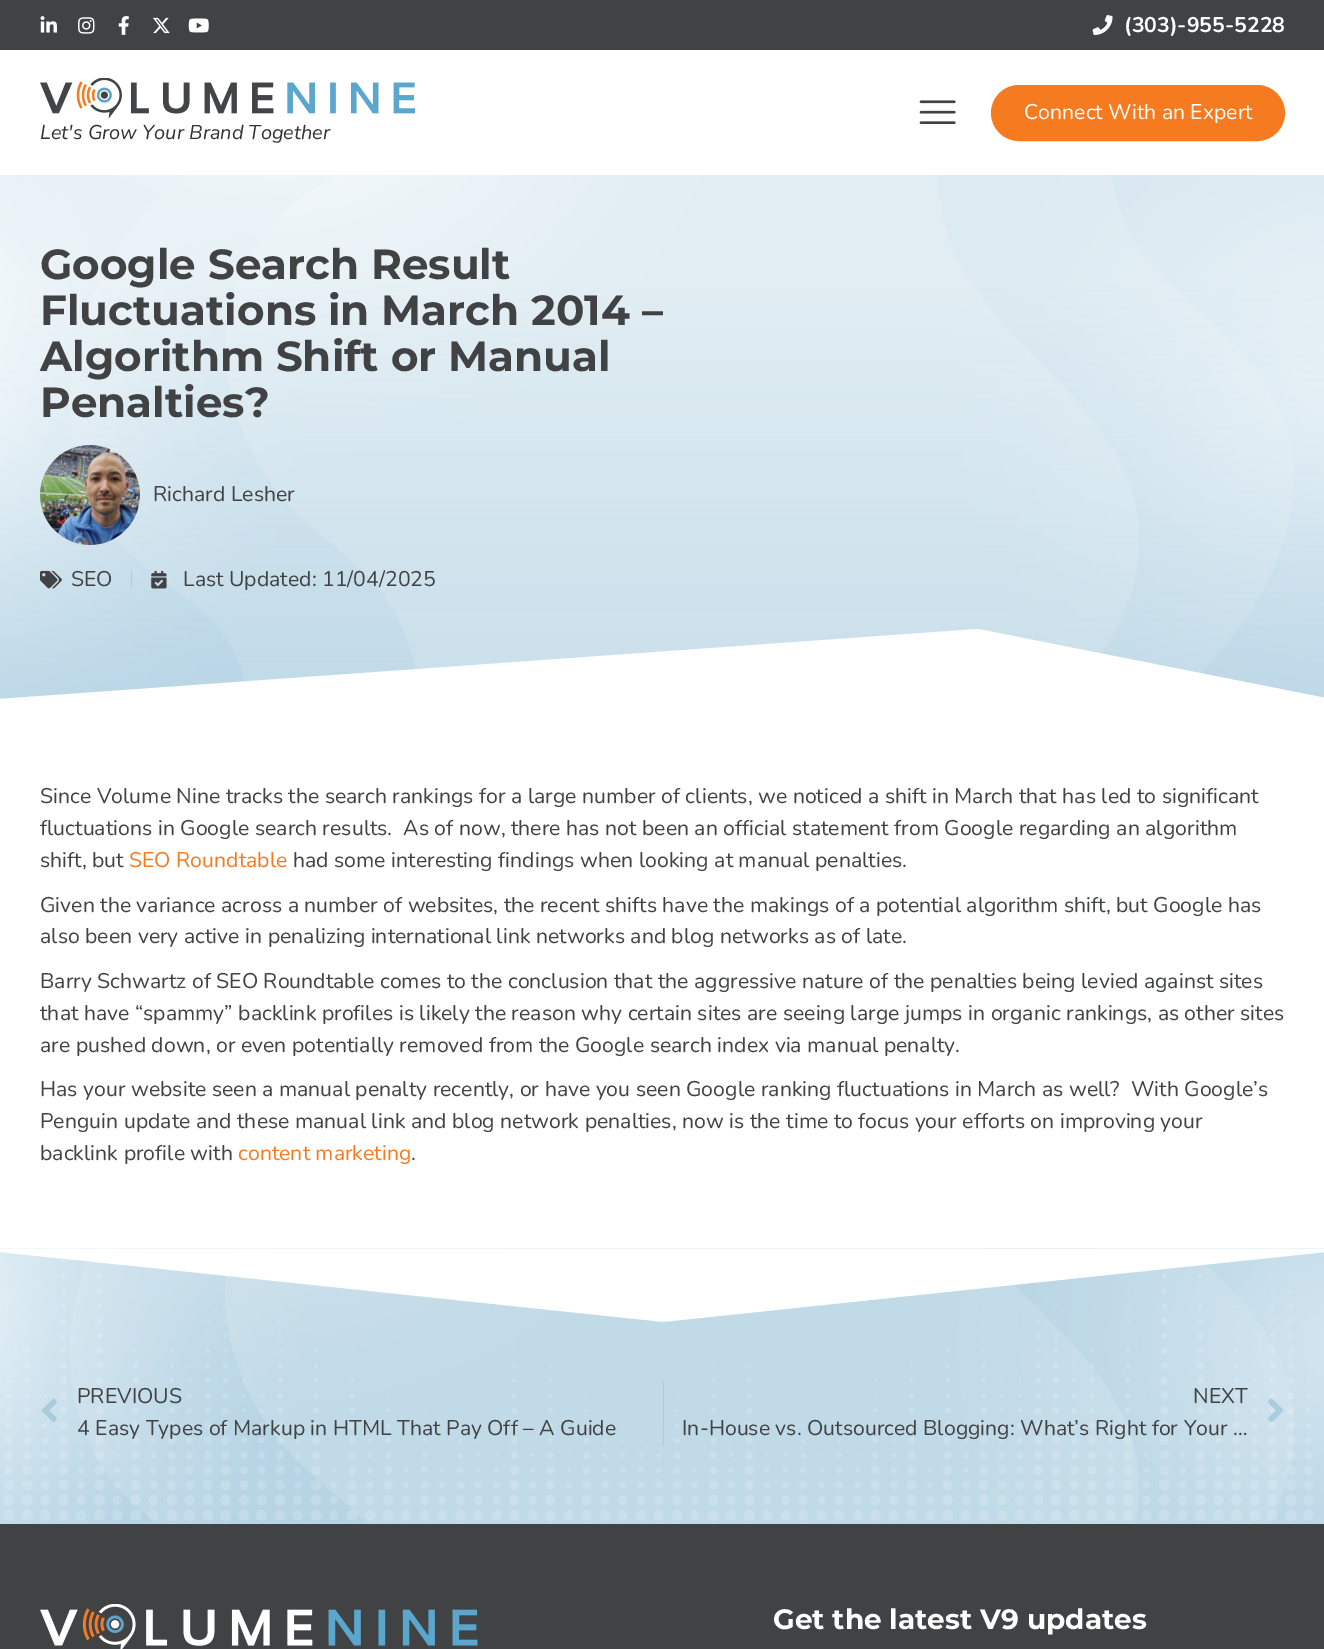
%!PS
<< /PageSize [1324 1649] >> setpagedevice
/roundrect { 5 dict begin { /r /h /w /y /x } { exch def } forall
  x r add y moveto x w add y 2 copy h add r arct x w add y h add x 1 index r arct
  x y h add x y r arct x y 2 copy exch w add exch r arct closepath end } def
/picture { 5 dict begin { /h /w /y /x /name } { exch def } forall
  gsave x y translate w h scale
  w h 8 [w 0 0 h 0 0] name (r) file false 3 colorimage grestore end } def
0 1649 translate 1 -1 scale
4 setmiterlimit
1 setgray
0 0 1324 1649 rectfill
0.255 0.259 0.267 setrgbcolor
0 0 1324 50 rectfill
(img1.rgb) 40 16 17 17 picture
(img2.rgb) 78 17 17 17 picture
(img3.rgb) 118 16 11 19 picture
(img4.rgb) 153 17 17 17 picture
(img5.rgb) 188 18 21 15 picture
(img6.rgb) 1092 15 21 20 picture
/Nunito-Bold [21.25 0 0 -21.25 0 0] selectfont
1 setgray
1124 32 moveto (\(303\)-955-5228) show
(img7.rgb) 919 100 37 24 picture
0.965 0.478 0.125 setrgbcolor
992.5 86.5 291 53 26.5 roundrect gsave fill grestore
3 setlinewidth
stroke
/Nunito-Regular [21.25 0 0 -21.25 0 0] selectfont
1 setgray
1024 119 moveto (Connect With an Expert) show
(img8.rgb) 40 78 375 41 picture
/Nunito-Italic [20 0 0 -20 0 0] selectfont
0.2 setgray
40 139 moveto (Let's Grow Your Brand Together) show
(img9.rgb) 0 175 1324 524 picture
/Montserrat-Bold [42 0 0 -42 0 0] selectfont
0.255 0.259 0.267 setrgbcolor
40 279 moveto (Google Search Result) show
40 325 moveto (Fluctuations in March 2014 –) show
40 371 moveto (Algorithm Shift or Manual) show
40 417 moveto (Penalties?) show
(img10.rgb) 40 445 100 100 picture
/Nunito-Regular [21.25 0 0 -21.25 0 0] selectfont
153 501 moveto (Richard Lesher) show
(img11.rgb) 40 570 22 19 picture
71 586 moveto (SEO) show
0.667 0.8 0.867 setrgbcolor
131 571 1 17 rectfill
(img12.rgb) 151 570 16 19 picture
0.255 0.259 0.267 setrgbcolor
183 586 moveto (Last Updated: 11/04/2025) show
1 setgray
newpath 978 629 moveto 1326 698 lineto 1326 703 lineto -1 703 lineto -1 699 lineto closepath fill
0.255 0.259 0.267 setrgbcolor
40 803 moveto (Since Volume Nine tracks the search rankings for a large number of clients, we noticed a shift in March that has led to significant) show
40 835 moveto (fluctuations in Google search results.  As of now, there has not been an official statement from Google regarding an algorithm) show
40 867 moveto (shift, but) show
0.965 0.478 0.125 setrgbcolor
129 867 moveto (SEO Roundtable) show
0.255 0.259 0.267 setrgbcolor
293 867 moveto (had some interesting findings when looking at manual penalties.) show
40 912 moveto (Given the variance across a number of websites, the recent shifts have the makings of a potential algorithm shift, but Google has) show
40 943 moveto (also been very active in penalizing international link networks and blog networks as of late.) show
40 988 moveto (Barry Schwartz of SEO Roundtable comes to the conclusion that the aggressive nature of the penalties being levied against sites) show
40 1020 moveto (that have “spammy” backlink profiles is likely the reason why certain sites are seeing large jumps in organic rankings, as other sites) show
40 1052 moveto (are pushed down, or even potentially removed from the Google search index via manual penalty.) show
40 1096 moveto (Has your website seen a manual penalty recently, or have you seen Google ranking fluctuations in March as well?  With Google’s) show
40 1128 moveto (Penguin update and these manual link and blog network penalties, now is the time to focus your efforts on improving your) show
40 1160 moveto (backlink profile with) show
0.965 0.478 0.125 setrgbcolor
238 1160 moveto (content marketing) show
0.255 0.259 0.267 setrgbcolor
411 1160 moveto (.) show
(img13.rgb) 0 1248 1324 276 picture
gsave
0 1249 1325 74 rectclip
1 setgray
newpath 663 1322 moveto -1 1252 lineto -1 1248 lineto 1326 1248 lineto 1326 1252 lineto closepath fill
grestore
(img14.rgb) 3 1260 1311 261 picture
(img15.rgb) 41 1398 16 24 picture
77 1403 moveto (PREVIOUS) show
77 1435 moveto (4 Easy Types of Markup in HTML That Pay Off – A Guide) show
0.667 0.8 0.867 setrgbcolor
663 1381 1 64 rectfill
0.255 0.259 0.267 setrgbcolor
1193 1403 moveto (NEXT) show
682 1435 moveto (In-House vs. Outsourced Blogging: What’s Right for Your …) show
(img16.rgb) 1268 1398 16 24 picture
0 1524 1324 125 rectfill
(img17.rgb) 40 1604 438 45 picture
/Montserrat-Bold [28 0 0 -28 0 0] selectfont
1 setgray
773 1629 moveto (Get the latest V9 updates) show
showpage
